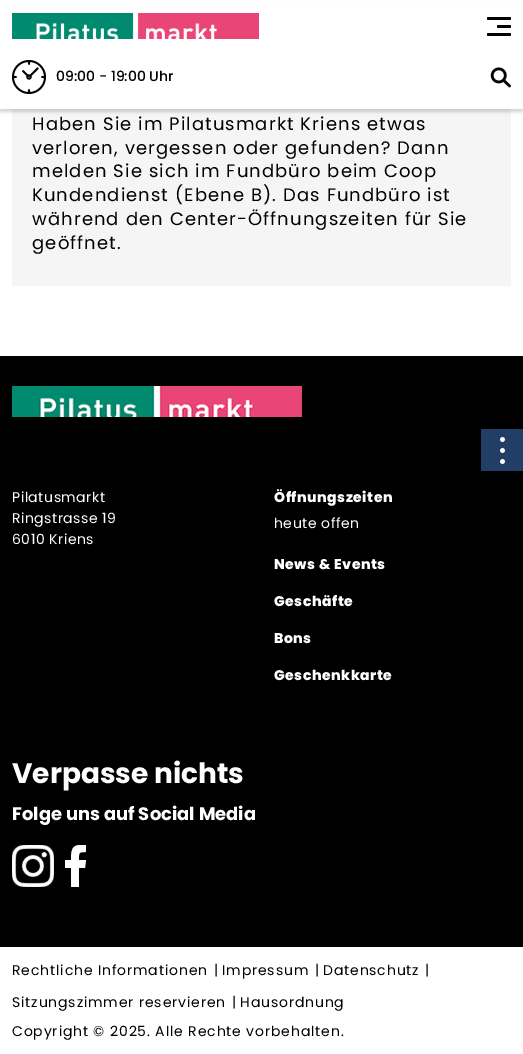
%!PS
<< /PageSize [523 1054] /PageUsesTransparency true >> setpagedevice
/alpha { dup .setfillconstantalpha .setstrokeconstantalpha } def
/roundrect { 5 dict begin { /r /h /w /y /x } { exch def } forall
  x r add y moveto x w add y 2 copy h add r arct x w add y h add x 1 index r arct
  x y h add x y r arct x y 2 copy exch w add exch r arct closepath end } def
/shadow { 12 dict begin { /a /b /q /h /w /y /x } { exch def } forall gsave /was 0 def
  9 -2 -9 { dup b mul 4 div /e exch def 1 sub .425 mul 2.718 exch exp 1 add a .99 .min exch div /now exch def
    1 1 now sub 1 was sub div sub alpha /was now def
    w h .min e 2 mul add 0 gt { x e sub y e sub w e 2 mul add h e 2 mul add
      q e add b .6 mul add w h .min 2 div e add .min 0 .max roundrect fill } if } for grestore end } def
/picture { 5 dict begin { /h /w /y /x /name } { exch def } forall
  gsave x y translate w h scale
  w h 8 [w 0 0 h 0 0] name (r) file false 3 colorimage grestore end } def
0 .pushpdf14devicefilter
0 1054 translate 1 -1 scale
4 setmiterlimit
1 setgray
0 0 523 1054 rectfill
0.961 setgray
12 109 499 177 rectfill
0 setgray
0 3 523 109 0 1.5 0.16 shadow
1 setgray
0 1 523 108 rectfill
(img1.rgb) 12 13 247 26 picture
0 setgray
487 17 24 3 1 roundrect fill
497 25 14 3 1 roundrect fill
487 33 24 3 1 roundrect fill
(img2.rgb) 12 60 34 34 picture
/Poppins-Medium [14 0 0 -14 0 0] selectfont
56 81 moveto (09:00 - 19:00 Uhr) show
(img3.rgb) 490 67 21 21 picture
/Poppins-Regular [18 0 0 -18 0 0] selectfont
32 130 moveto 1.1 0 (Haben Sie im Pilatusmarkt Kriens etwas) ashow
32 154 moveto 1.1 0 (verloren, vergessen oder gefunden? Dann) ashow
32 177 moveto 1.1 0 (melden Sie sich im Fundbüro beim Coop) ashow
32 201 moveto 1.1 0 (Kundendienst \(Ebene B\). Das Fundbüro ist) ashow
32 225 moveto 1.1 0 (während den Center-Öffnungszeiten für Sie) ashow
32 249 moveto 1.1 0 (geöffnet.) ashow
0 356 523 591 rectfill
0.129 0.243 0.4 setrgbcolor
481 429 42 42 rectfill
(img4.rgb) 500 437 5 27 picture
(img5.rgb) 12 386 290 31 picture
/Poppins-Regular [14 0 0 -14 0 0] selectfont
1 setgray
12 502 moveto 0.5 0 (Pilatusmarkt) ashow
12 523 moveto 0.5 0 (Ringstrasse 19) ashow
12 544 moveto 0.5 0 (6010 Kriens) ashow
/Poppins-ExtraBold [14 0 0 -14 0 0] selectfont
274 502 moveto 0.5 0 (Öffnungszeiten) ashow
/Poppins-Regular [14 0 0 -14 0 0] selectfont
274 528 moveto 0.5 0 (heute offen) ashow
/Poppins-ExtraBold [14 0 0 -14 0 0] selectfont
274 569 moveto 0.5 0 (News & Events) ashow
274 606 moveto 0.5 0 (Geschäfte) ashow
274 643 moveto 0.5 0 (Bons) ashow
274 680 moveto 0.5 0 (Geschenkkarte) ashow
/Poppins-Bold [28 0 0 -28 0 0] selectfont
12 783 moveto (Verpasse nichts) show
/Poppins-Bold [18 0 0 -18 0 0] selectfont
12 820 moveto (Folge uns auf Social Media) show
(img6.rgb) 12 845 42 42 picture
gsave
64 845 23 42 rectclip
newpath 79 887 moveto 79 868 lineto 85 868 lineto 86 860 lineto 79 860 lineto 79 853 78 852 86 852 curveto 86 845 lineto 73 844 71 847 71 860 curveto 65 860 lineto 65 868 lineto 71 868 lineto 71 887 lineto closepath fill
grestore
/Poppins-Regular [14 0 0 -14 0 0] selectfont
0 setgray
12 975 moveto 0.85 0 (Rechtliche Informationen) ashow
214 975 moveto 0.85 0 (|) ashow
222 975 moveto 0.85 0 (Impressum) ashow
315 975 moveto 0.85 0 (|) ashow
323 975 moveto 0.85 0 (Datenschutz) ashow
425 975 moveto 0.85 0 (|) ashow
12 1007 moveto 0.85 0 (Sitzungszimmer reservieren) ashow
232 1007 moveto 0.85 0 (|) ashow
240 1007 moveto 0.85 0 (Hausordnung) ashow
12 1036 moveto 0.85 0 (Copyright © 2025. Alle Rechte vorbehalten.) ashow
.poppdf14devicefilter showpage
